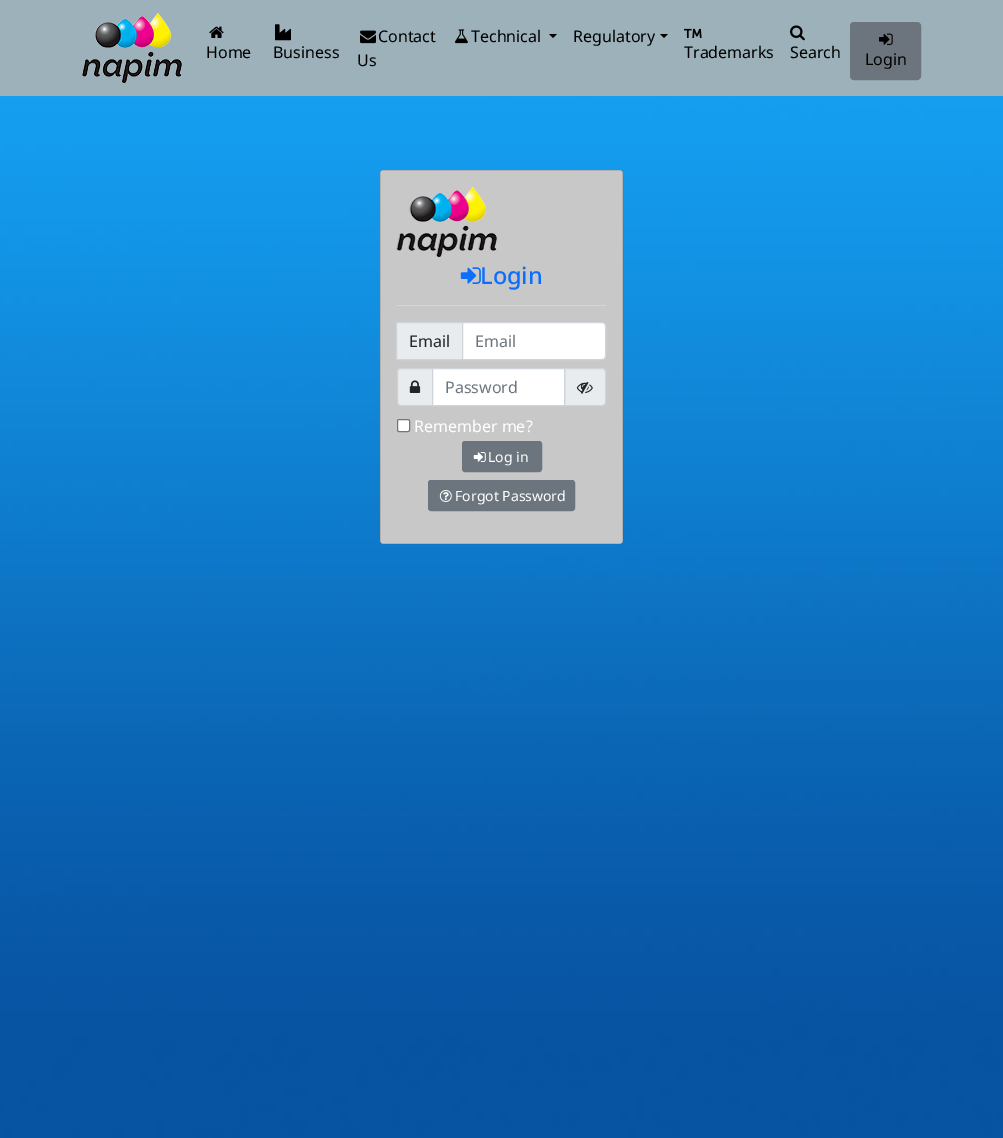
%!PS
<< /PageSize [1003 1138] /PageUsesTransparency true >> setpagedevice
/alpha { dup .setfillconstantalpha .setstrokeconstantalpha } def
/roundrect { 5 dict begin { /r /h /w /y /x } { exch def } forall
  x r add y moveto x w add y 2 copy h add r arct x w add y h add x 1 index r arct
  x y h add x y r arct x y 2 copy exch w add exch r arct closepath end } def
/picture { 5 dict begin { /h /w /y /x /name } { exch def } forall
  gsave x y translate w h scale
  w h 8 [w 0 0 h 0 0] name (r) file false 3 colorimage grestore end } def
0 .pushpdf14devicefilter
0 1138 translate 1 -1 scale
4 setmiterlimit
1 setgray
0 0 1003 1138 rectfill
(img9.rgb) 0 0 1003 1138 picture
0.9 alpha
0.675 0.702 0.706 setrgbcolor
0 0 1003 96 rectfill
1 alpha
(img1.rgb) 82 13 100 70 picture
(img2.rgb) 209 26 15 12 picture
/NotoSans-Regular [16 0 0 -16 0 0] selectfont
0 setgray
206 58 moveto (Home) show
(img3.rgb) 275 24 16 17 picture
273 58 moveto (Business) show
(img4.rgb) 360 30 16 14 picture
378 42 moveto (Contact) show
357 66 moveto (Us) show
(img5.rgb) 455 29 13 15 picture
471 42 moveto (Technical) show
newpath 549 34 moveto 557 34 lineto 553 38 lineto closepath fill
573 42 moveto (Regulatory) show
newpath 660 34 moveto 668 34 lineto 664 38 lineto closepath fill
(img6.rgb) 684 28 18 10 picture
684 58 moveto (Trademarks) show
(img7.rgb) 790 25 15 16 picture
790 58 moveto (Search) show
0.424 0.459 0.49 setrgbcolor
850.5 22.5 70 57 3.5 roundrect gsave fill grestore
stroke
(img8.rgb) 879 33 14 12 picture
0 setgray
865 65 moveto (Login) show
0.784 setgray
380 170 243 374 4 roundrect fill
0.12 alpha
0 setgray
380.5 170.5 242 373 3.5 roundrect stroke
1 alpha
0.784 setgray
381 171 241 372 rectfill
(img10.rgb) 396 187 101 70 picture
(img11.rgb) 460 267 21 17 picture
/NotoSans-Medium [23.5 0 0 -23.5 0 0] selectfont
0.051 0.431 0.992 setrgbcolor
480 284 moveto (Login) show
0.839 setgray
397 305 209 1 rectfill
0.914 0.925 0.937 setrgbcolor
newpath 396.5 322.5 moveto 462.5 322.5 lineto 462.5 359.5 lineto 396.5 359.5 lineto closepath gsave fill grestore
0.808 0.831 0.855 setrgbcolor
stroke
/NotoSans-Regular [16 0 0 -16 0 0] selectfont
0.129 0.145 0.161 setrgbcolor
409 347 moveto (Email) show
1 setgray
newpath 462.5 322.5 moveto 602 322.5 lineto 604 322.5 605.5 324 605.5 326 curveto 605.5 356 lineto 605.5 358 604 359.5 602 359.5 curveto 462.5 359.5 lineto closepath gsave fill grestore
0.808 0.831 0.855 setrgbcolor
stroke
0.424 0.459 0.49 setrgbcolor
475 347 moveto (Email) show
0.914 0.925 0.937 setrgbcolor
newpath 401 368.5 moveto 432.5 368.5 lineto 432.5 405.5 lineto 401 405.5 lineto 399 405.5 397.5 404 397.5 402 curveto 397.5 372 lineto 397.5 370 399 368.5 401 368.5 curveto closepath gsave fill grestore
0.808 0.831 0.855 setrgbcolor
stroke
(img12.rgb) 409 380 12 13 picture
0.914 0.925 0.937 setrgbcolor
newpath 564.5 368.5 moveto 602 368.5 lineto 604 368.5 605.5 370 605.5 372 curveto 605.5 402 lineto 605.5 404 604 405.5 602 405.5 curveto 564.5 405.5 lineto closepath gsave fill grestore
0.808 0.831 0.855 setrgbcolor
stroke
1 setgray
newpath 432.5 368.5 moveto 564.5 368.5 lineto 564.5 405.5 lineto 432.5 405.5 lineto closepath gsave fill grestore
0.808 0.831 0.855 setrgbcolor
stroke
0.424 0.459 0.49 setrgbcolor
445 393 moveto (Password) show
(img13.rgb) 576 381 17 13 picture
1 setgray
397.5 419.5 12 12 1.5 roundrect gsave fill grestore
0.463 setgray
stroke
1 setgray
414 432 moveto (Remember me?) show
0.424 0.459 0.49 setrgbcolor
462.5 441.5 79 30 2.5 roundrect gsave fill grestore
stroke
(img14.rgb) 473 452 13 10 picture
/NotoSans-Regular [14 0 0 -14 0 0] selectfont
1 setgray
488 462 moveto (Log in) show
0.424 0.459 0.49 setrgbcolor
428.5 480.5 146 30 2.5 roundrect gsave fill grestore
stroke
(img15.rgb) 439 490 13 12 picture
1 setgray
455 501 moveto (Forgot Password) show
.poppdf14devicefilter showpage
